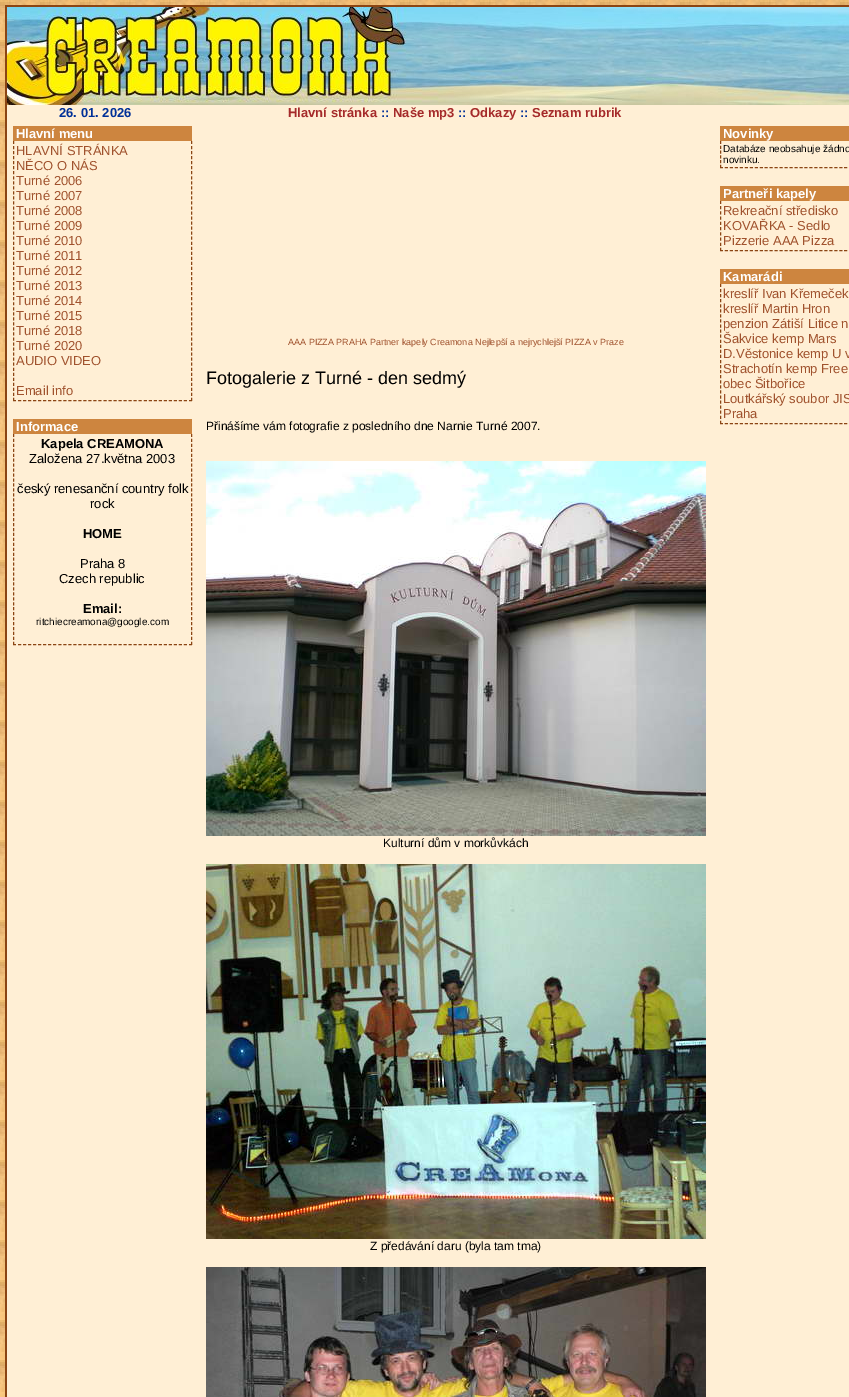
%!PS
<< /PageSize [849 1397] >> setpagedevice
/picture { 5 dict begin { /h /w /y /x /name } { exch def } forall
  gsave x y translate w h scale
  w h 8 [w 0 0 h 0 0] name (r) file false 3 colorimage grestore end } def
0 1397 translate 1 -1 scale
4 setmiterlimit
1 setgray
0 0 849 1397 rectfill
(img1.rgb) 0 0 849 1397 picture
(img2.rgb) 7 7 842 98 picture
0.545 0.271 0.075 setrgbcolor
5 5 844 2 rectfill
5 5 2 1392 rectfill
1 0.937 0.835 setrgbcolor
7 105 842 15 rectfill
/LiberationSans-Bold [13 0 0 -13 0 0] selectfont
0 0.188 0.596 setrgbcolor
59 117 moveto (26. 01. 2026) show
0.647 0.165 0.165 setrgbcolor
288 117 moveto (Hlavní stránka) show
0 0.188 0.596 setrgbcolor
381 117 moveto (::) show
0.647 0.165 0.165 setrgbcolor
393 117 moveto (Naše mp3) show
0 0.188 0.596 setrgbcolor
458 117 moveto (::) show
0.647 0.165 0.165 setrgbcolor
470 117 moveto (Odkazy) show
0 0.188 0.596 setrgbcolor
520 117 moveto (::) show
0.647 0.165 0.165 setrgbcolor
532 117 moveto (Seznam rubrik) show
1 0.937 0.835 setrgbcolor
7 120 842 1277 rectfill
0.804 0.522 0.247 setrgbcolor
13 126 179 15 rectfill
1 setgray
16 138 moveto (Hlavní menu) show
0.545 0.271 0.075 setrgbcolor
[3 2.04] 0 setdash
newpath 191.5 141 moveto 191.5 401 lineto stroke
[3 2.03] 0 setdash
newpath 13 400.5 moveto 192 400.5 lineto stroke
[3 2.04] 0 setdash
newpath 13.5 141 moveto 13.5 401 lineto stroke
/LiberationSans-Regular [13 0 0 -13 0 0] selectfont
0.627 0.322 0.176 setrgbcolor
16 155 moveto (HLAVNÍ STRÁNKA) show
16 170 moveto (NĚCO O NÁS) show
16 185 moveto (Turné 2006) show
16 200 moveto (Turné 2007) show
16 215 moveto (Turné 2008) show
16 230 moveto (Turné 2009) show
16 245 moveto (Turné 2010) show
16 260 moveto (Turné 2011) show
16 275 moveto (Turné 2012) show
16 290 moveto (Turné 2013) show
16 305 moveto (Turné 2014) show
16 320 moveto (Turné 2015) show
16 335 moveto (Turné 2018) show
16 350 moveto (Turné 2020) show
16 365 moveto (AUDIO VIDEO) show
16 395 moveto (Email info) show
0.804 0.522 0.247 setrgbcolor
13 419 179 15 rectfill
/LiberationSans-Bold [13 0 0 -13 0 0] selectfont
1 setgray
16 431 moveto (Informace) show
0.545 0.271 0.075 setrgbcolor
[3 1.95] 0 setdash
newpath 191.5 434 moveto 191.5 645 lineto stroke
[3 2.03] 0 setdash
newpath 13 644.5 moveto 192 644.5 lineto stroke
[3 1.95] 0 setdash
newpath 13.5 434 moveto 13.5 645 lineto stroke
0 setgray
41 448 moveto (Kapela CREAMONA) show
/LiberationSans-Regular [13 0 0 -13 0 0] selectfont
29 463 moveto (Založena 27.května 2003) show
17 493 moveto (český renesanční country folk) show
90 508 moveto (rock) show
/LiberationSans-Bold [13 0 0 -13 0 0] selectfont
83 538 moveto (HOME) show
/LiberationSans-Regular [13 0 0 -13 0 0] selectfont
80 568 moveto (Praha 8) show
59 583 moveto (Czech republic) show
/LiberationSans-Bold [13 0 0 -13 0 0] selectfont
83 613 moveto (Email:) show
/LiberationSans-Regular [10 0 0 -10 0 0] selectfont
36 625 moveto (ritchiecreamona@google.com) show
0.804 0.522 0.247 setrgbcolor
720 126 129 15 rectfill
/LiberationSans-Bold [13 0 0 -13 0 0] selectfont
1 setgray
723 138 moveto (Novinky) show
0.545 0.271 0.075 setrgbcolor
[3 1.97] 0 setdash
newpath 720 167.5 moveto 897 167.5 lineto stroke
[3 1.8] 0 setdash
newpath 720.5 141 moveto 720.5 168 lineto stroke
/LiberationSans-Regular [10 0 0 -10 0 0] selectfont
0 setgray
723 152 moveto (Databáze neobsahuje žádno) show
723 163 moveto (novinku.) show
0.804 0.522 0.247 setrgbcolor
720 186 129 15 rectfill
/LiberationSans-Bold [13 0 0 -13 0 0] selectfont
1 setgray
723 198 moveto (Partneři kapely) show
0.545 0.271 0.075 setrgbcolor
[3 1.97] 0 setdash
newpath 720 250.5 moveto 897 250.5 lineto stroke
[3 2.22] 0 setdash
newpath 720.5 201 moveto 720.5 251 lineto stroke
/LiberationSans-Regular [13 0 0 -13 0 0] selectfont
0.627 0.322 0.176 setrgbcolor
723 215 moveto (Rekreační středisko) show
723 230 moveto (KOVAŘKA - Sedlo) show
723 245 moveto (Pizzerie AAA Pizza) show
0.804 0.522 0.247 setrgbcolor
720 269 129 15 rectfill
/LiberationSans-Bold [13 0 0 -13 0 0] selectfont
1 setgray
723 281 moveto (Kamarádi) show
0.545 0.271 0.075 setrgbcolor
[3 1.97] 0 setdash
newpath 720 423.5 moveto 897 423.5 lineto stroke
[3 2.07] 0 setdash
newpath 720.5 284 moveto 720.5 424 lineto stroke
/LiberationSans-Regular [13 0 0 -13 0 0] selectfont
0.627 0.322 0.176 setrgbcolor
723 298 moveto (kreslíř Ivan Křemeček) show
723 313 moveto (kreslíř Martin Hron) show
723 328 moveto (penzion Zátiší Litice n) show
723 343 moveto (Šakvice kemp Mars) show
723 358 moveto (D.Věstonice kemp U v) show
723 373 moveto (Strachotín kemp Free) show
723 388 moveto (obec Šitbořice) show
723 403 moveto (Loutkářský soubor JIS) show
723 418 moveto (Praha) show
/LiberationSans-Regular [9 0 0 -9 0 0] selectfont
288 345 moveto (AAA PIZZA PRAHA Partner kapely Creamona Nejlepší a nejrychlejší PIZZA v Praze) show
/LiberationSans-Regular [18 0 0 -18 0 0] selectfont
0 setgray
206 384 moveto (Fotogalerie z Turné - den sedmý) show
/LiberationSans-Regular [12 0 0 -12 0 0] selectfont
206 430 moveto (Přinášíme vám fotografie z posledního dne Narnie Turné 2007.) show
(img3.rgb) 206 461 500 375 picture
383 847 moveto (Kulturní dům v morkůvkách) show
(img4.rgb) 206 864 500 375 picture
370 1250 moveto (Z předávání daru \(byla tam tma\)) show
(img5.rgb) 206 1267 500 130 picture
showpage
